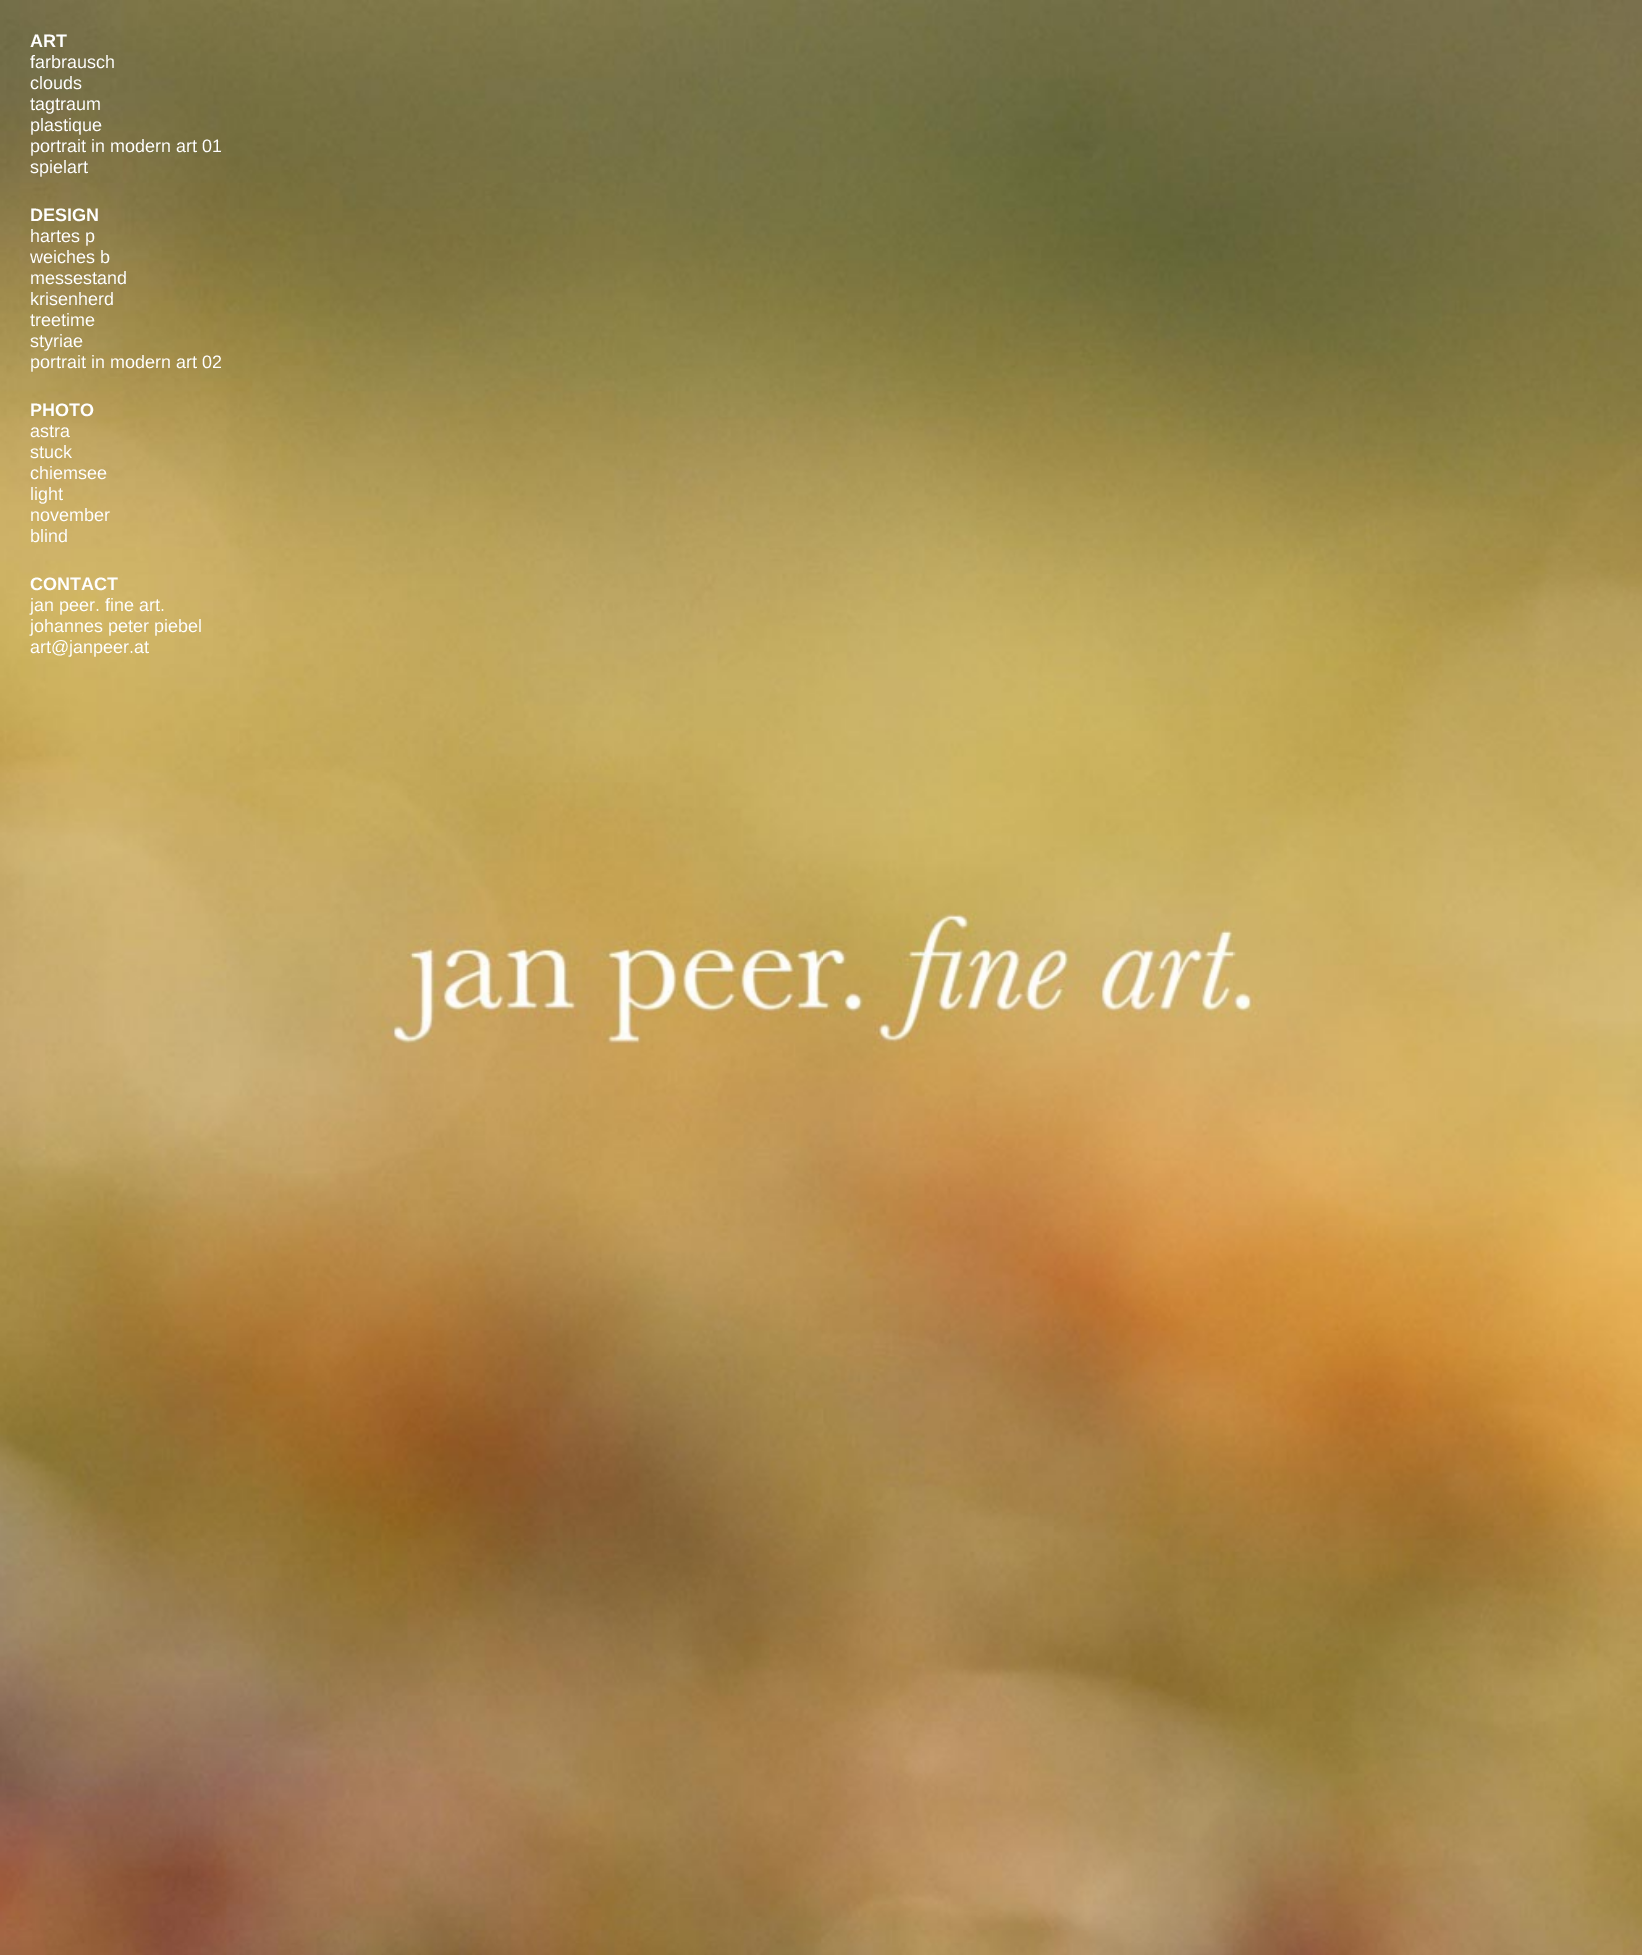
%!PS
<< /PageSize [1642 1955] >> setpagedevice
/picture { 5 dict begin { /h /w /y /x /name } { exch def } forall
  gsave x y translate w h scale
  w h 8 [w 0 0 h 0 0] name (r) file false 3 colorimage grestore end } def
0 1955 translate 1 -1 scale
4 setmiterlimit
1 setgray
0 0 1642 1955 rectfill
(img1.rgb) 0 0 1642 1955 picture
/LiberationSans-Bold [18 0 0 -18 0 0] selectfont
30 47 moveto (ART) show
/LiberationSans-Regular [18 0 0 -18 0 0] selectfont
30 68 moveto (farbrausch) show
30 89 moveto (clouds) show
30 110 moveto (tagtraum) show
30 131 moveto (plastique) show
30 152 moveto (portrait in modern art 01) show
30 173 moveto (spielart) show
/LiberationSans-Bold [18 0 0 -18 0 0] selectfont
30 221 moveto (DESIGN) show
/LiberationSans-Regular [18 0 0 -18 0 0] selectfont
30 242 moveto (hartes p) show
30 263 moveto (weiches b) show
30 284 moveto (messestand) show
30 305 moveto (krisenherd) show
30 326 moveto (treetime) show
30 347 moveto (styriae) show
30 368 moveto (portrait in modern art 02) show
/LiberationSans-Bold [18 0 0 -18 0 0] selectfont
30 416 moveto (PHOTO) show
/LiberationSans-Regular [18 0 0 -18 0 0] selectfont
30 437 moveto (astra) show
30 458 moveto (stuck) show
30 479 moveto (chiemsee) show
30 500 moveto (light) show
30 521 moveto (november) show
30 542 moveto (blind) show
/LiberationSans-Bold [18 0 0 -18 0 0] selectfont
30 590 moveto (CONTACT) show
/LiberationSans-Regular [18 0 0 -18 0 0] selectfont
30 611 moveto (jan peer. fine art.) show
30 632 moveto (johannes peter piebel) show
30 653 moveto (art@janpeer.at) show
showpage
